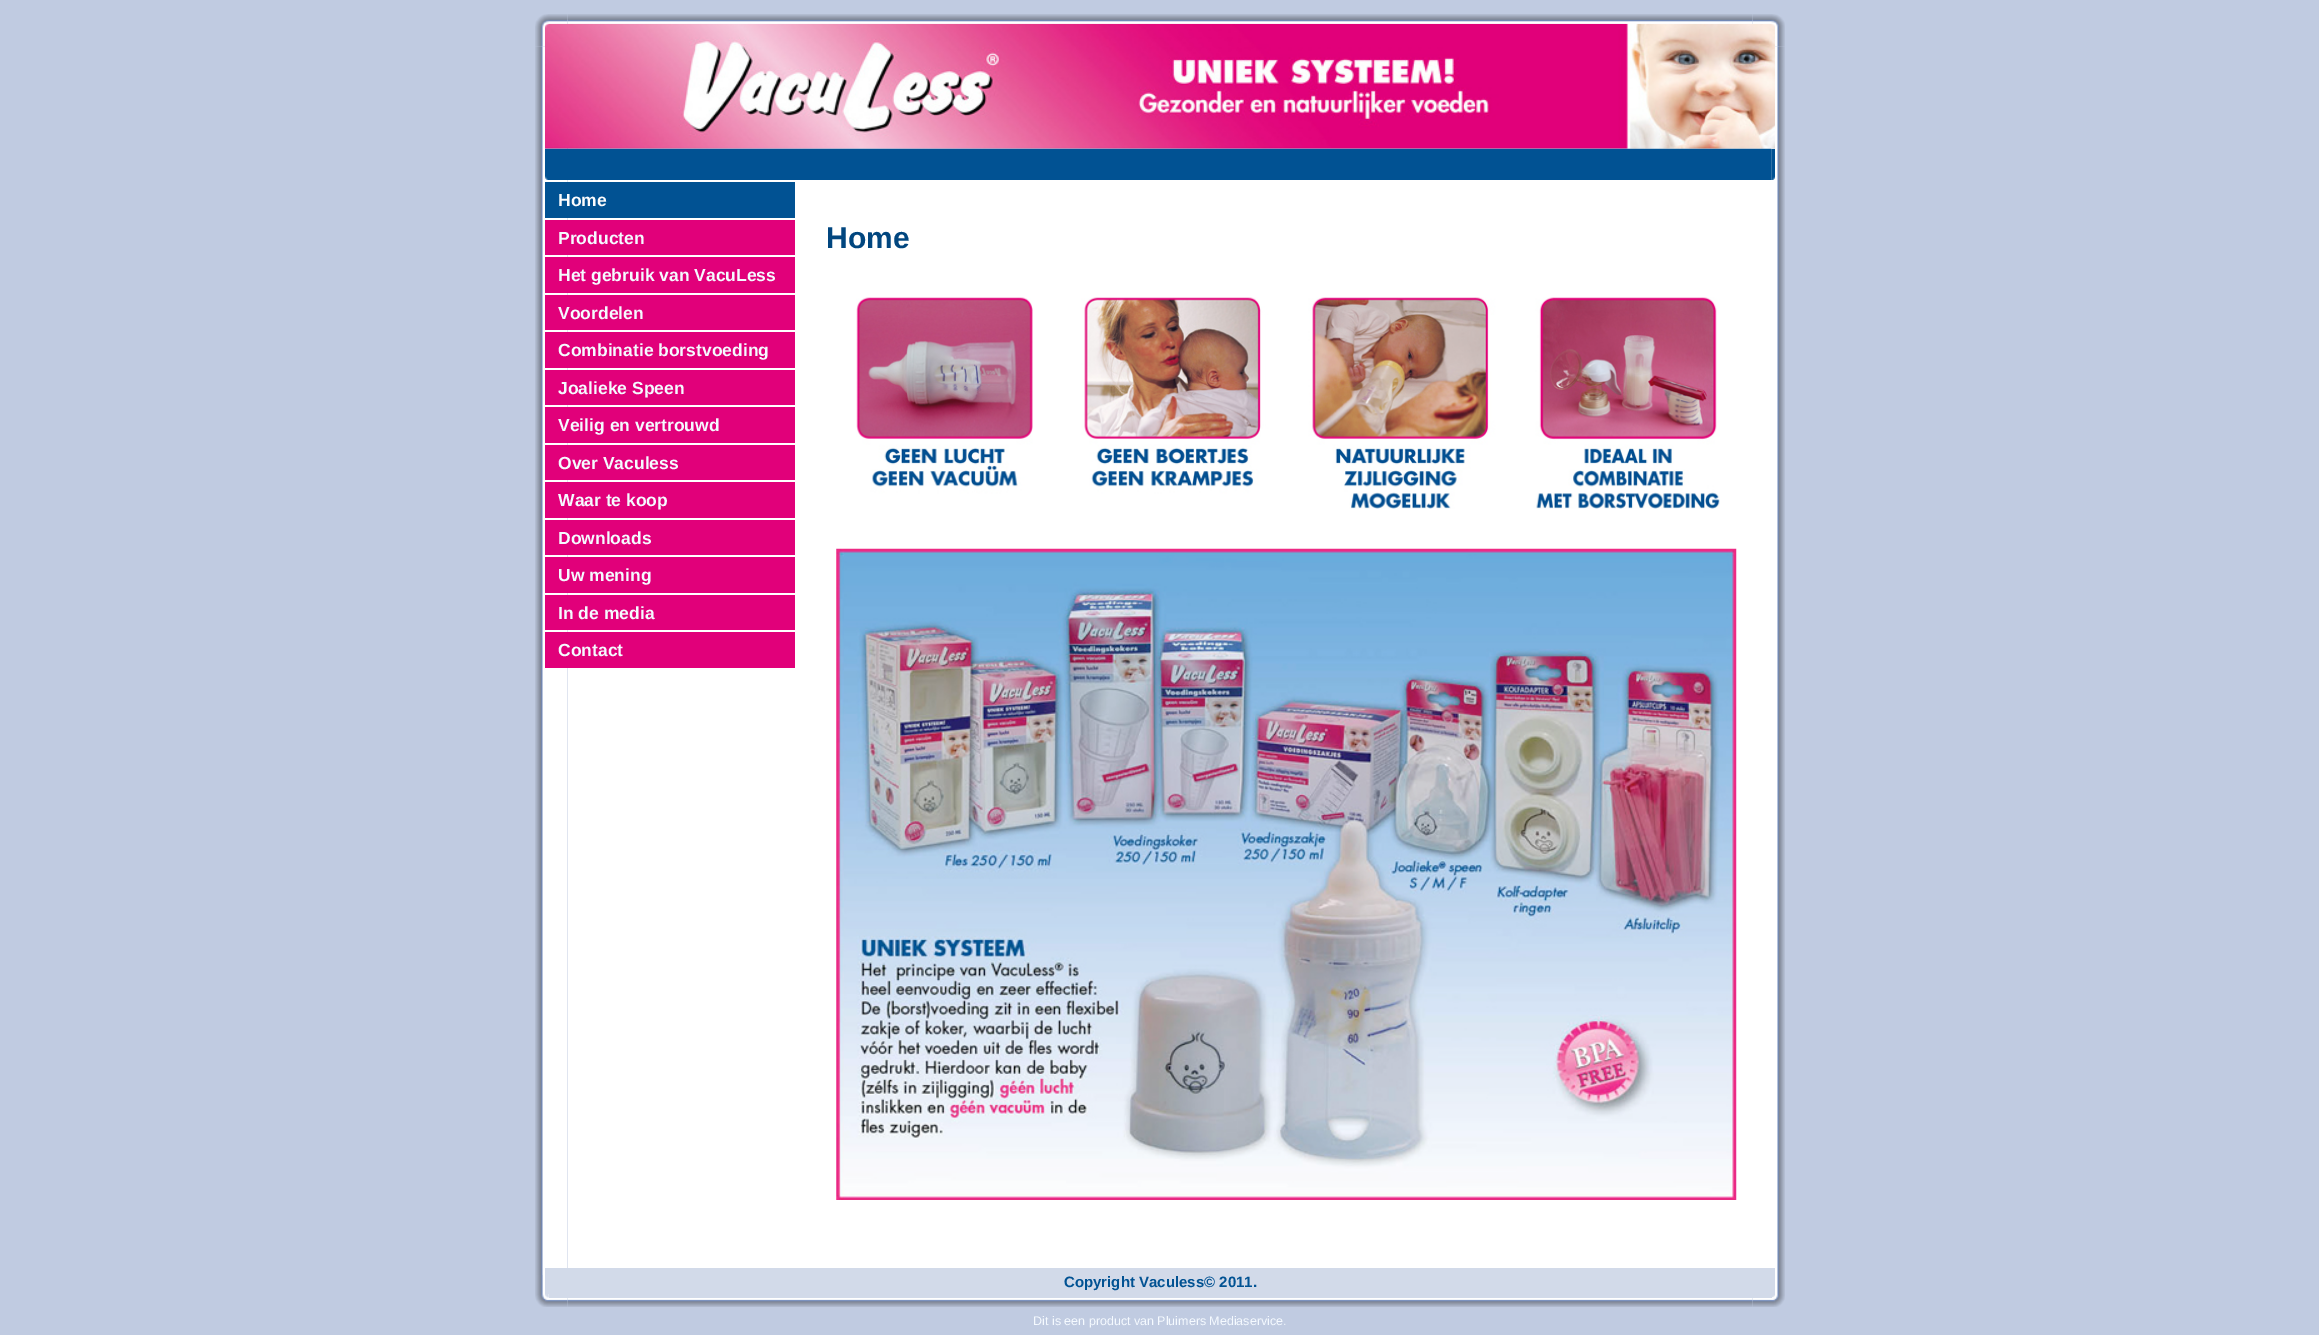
%!PS
<< /PageSize [2319 1335] >> setpagedevice
/picture { 5 dict begin { /h /w /y /x /name } { exch def } forall
  gsave x y translate w h scale
  w h 8 [w 0 0 h 0 0] name (r) file false 3 colorimage grestore end } def
0 1335 translate 1 -1 scale
4 setmiterlimit
0.753 0.796 0.882 setrgbcolor
0 0 2319 1335 rectfill
(img1.rgb) 535 14 33 33 picture
(img3.rgb) 1752 14 33 33 picture
(img2.rgb) 567 14 1186 10 picture
(img4.rgb) 535 46 33 1229 picture
1 setgray
568 148 1185 1120 rectfill
(img5.rgb) 1753 46 32 1229 picture
(img6.rgb) 535 1275 33 32 picture
(img7.rgb) 545 23 1230 126 picture
(img8.rgb) 551 29 1221 116 picture
(img9.rgb) 545 148 1227 32 picture
(img10.rgb) 1771 148 4 32 picture
0.004 0.322 0.576 setrgbcolor
545 182 250 36 rectfill
/LiberationSans-Bold [17.5 0 0 -17.5 0 0] selectfont
0.988 0.988 0.992 setrgbcolor
558 206 moveto (Home) show
0.882 0 0.478 setrgbcolor
545 220 250 35 rectfill
0.961 0.98 1 setrgbcolor
558 244 moveto (Producten) show
0.882 0 0.478 setrgbcolor
545 257 250 36 rectfill
0.961 0.98 1 setrgbcolor
558 281 moveto (Het gebruik van VacuLess) show
0.882 0 0.478 setrgbcolor
545 295 250 35 rectfill
0.961 0.98 1 setrgbcolor
558 319 moveto (Voordelen) show
0.882 0 0.478 setrgbcolor
545 332 250 36 rectfill
0.961 0.98 1 setrgbcolor
558 356 moveto (Combinatie borstvoeding) show
0.882 0 0.478 setrgbcolor
545 370 250 35 rectfill
0.961 0.98 1 setrgbcolor
558 394 moveto (Joalieke Speen) show
0.882 0 0.478 setrgbcolor
545 407 250 36 rectfill
0.961 0.98 1 setrgbcolor
558 431 moveto (Veilig en vertrouwd) show
0.882 0 0.478 setrgbcolor
545 445 250 35 rectfill
0.961 0.98 1 setrgbcolor
558 469 moveto (Over Vaculess) show
0.882 0 0.478 setrgbcolor
545 482 250 36 rectfill
0.961 0.98 1 setrgbcolor
558 506 moveto (Waar te koop) show
0.882 0 0.478 setrgbcolor
545 520 250 35 rectfill
0.961 0.98 1 setrgbcolor
558 544 moveto (Downloads) show
0.882 0 0.478 setrgbcolor
545 557 250 36 rectfill
0.961 0.98 1 setrgbcolor
558 581 moveto (Uw mening) show
0.882 0 0.478 setrgbcolor
545 595 250 35 rectfill
0.961 0.98 1 setrgbcolor
558 619 moveto (In de media) show
0.882 0 0.478 setrgbcolor
545 632 250 36 rectfill
0.961 0.98 1 setrgbcolor
558 656 moveto (Contact) show
/LiberationSans-Bold [30 0 0 -30 0 0] selectfont
0.004 0.275 0.498 setrgbcolor
826 248 moveto (Home) show
(img11.rgb) 856 297 864 212 picture
(img12.rgb) 836 548 901 652 picture
(img15.rgb) 1752 1275 33 32 picture
0.824 0.855 0.914 setrgbcolor
545 1268 1230 26 rectfill
/LiberationSans-Bold [15 0 0 -15 0 0] selectfont
0.004 0.322 0.576 setrgbcolor
1064 1287 moveto (Copyright Vaculess© 2011.) show
(img13.rgb) 545 1294 4 4 picture
0.824 0.855 0.914 setrgbcolor
549 1294 1223 4 rectfill
(img14.rgb) 1772 1294 3 4 picture
(img16.rgb) 567 1298 1186 9 picture
/LiberationSans-Regular [12.5 0 0 -12.5 0 0] selectfont
0.961 0.98 1 setrgbcolor
1033 1325 moveto (Dit is een product van Pluimers Mediaservice.) show
showpage
